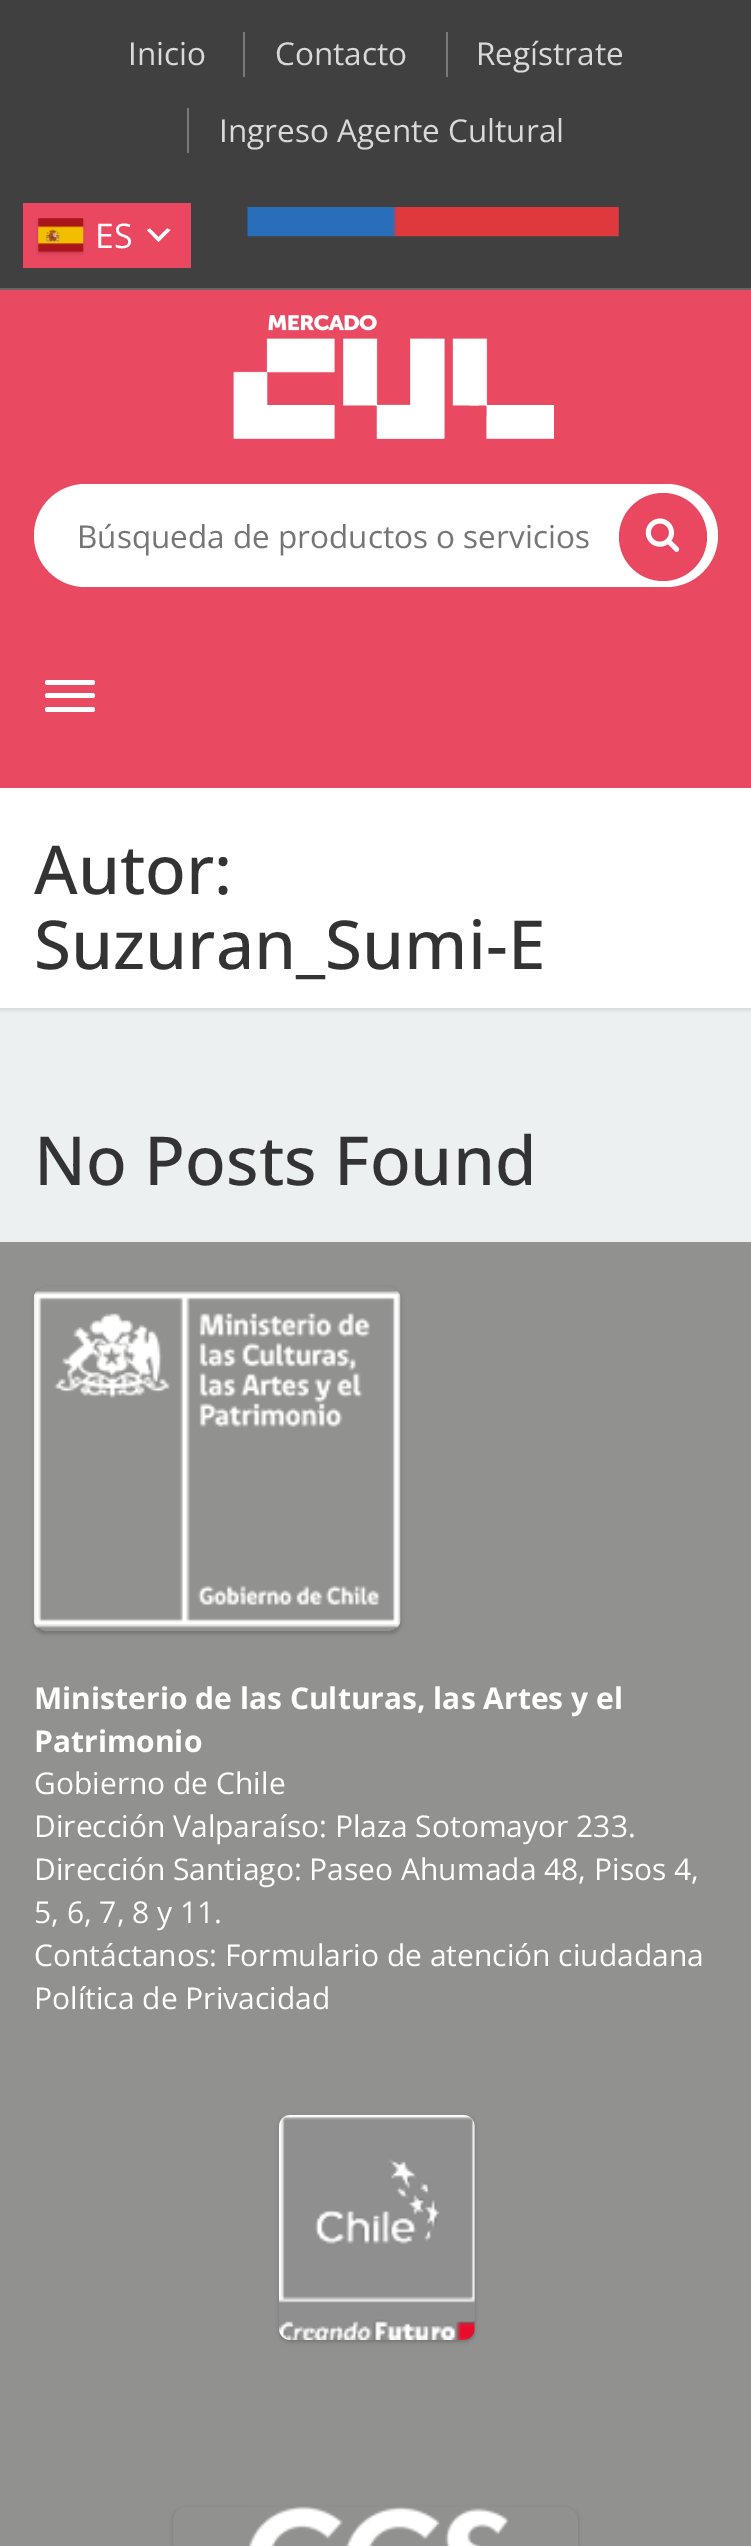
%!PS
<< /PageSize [751 2546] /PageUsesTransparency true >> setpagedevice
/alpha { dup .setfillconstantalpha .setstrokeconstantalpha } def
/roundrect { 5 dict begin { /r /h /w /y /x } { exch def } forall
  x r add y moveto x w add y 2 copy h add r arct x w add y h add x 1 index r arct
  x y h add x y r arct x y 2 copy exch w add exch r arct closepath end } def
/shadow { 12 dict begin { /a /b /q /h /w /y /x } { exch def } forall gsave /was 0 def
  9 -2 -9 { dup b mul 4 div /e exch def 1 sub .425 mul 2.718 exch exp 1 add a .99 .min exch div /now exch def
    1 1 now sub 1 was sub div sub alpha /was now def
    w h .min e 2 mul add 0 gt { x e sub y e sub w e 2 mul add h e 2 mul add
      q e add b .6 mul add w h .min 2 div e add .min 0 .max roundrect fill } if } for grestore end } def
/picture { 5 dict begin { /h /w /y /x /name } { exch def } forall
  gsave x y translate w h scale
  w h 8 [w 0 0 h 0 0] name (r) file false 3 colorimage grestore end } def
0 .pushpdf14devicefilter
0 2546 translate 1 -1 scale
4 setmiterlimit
0.925 0.941 0.945 setrgbcolor
0 0 751 2546 rectfill
0.251 setgray
0 0 751 288 rectfill
0.4 setgray
0 288 751 2 rectfill
/OpenSans-Regular [31.5 0 0 -31.5 0 0] selectfont
0.851 setgray
128 65 moveto (Inicio) show
0.475 setgray
243 32 2 45 rectfill
0.851 setgray
275 65 moveto (Contacto) show
0.475 setgray
446 32 2 45 rectfill
0.851 setgray
476 65 moveto (Regístrate) show
0.475 setgray
187 108 2 45 rectfill
0.851 setgray
219 142 moveto (Ingreso Agente Cultural) show
(img1.rgb) 247 207 372 30 picture
0 setgray
0 790 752 220 0 2 0.1 shadow
0.914 0.286 0.38 setrgbcolor
0 290 751 498 rectfill
(img2.rgb) 233 315 321 124 picture
1 setgray
34 484 684 103 51.5 roundrect fill
0.459 setgray
77 548 moveto (Búsqueda de productos o servicios) show
0.914 0.282 0.376 setrgbcolor
newpath 663 537 44 0 360 arc closepath fill
(img3.rgb) 645 518 35 34 picture
1 setgray
45 680 50 5 2.5 roundrect fill
45 693 50 5 2.5 roundrect fill
45 707 50 5 2.5 roundrect fill
0.914 0.282 0.376 setrgbcolor
23 203 168 65 rectfill
0 setgray
38 221 45 33 0 2 0.1 shadow
(img4.rgb) 38 218 46 35 picture
/OpenSans-Regular [34 0 0 -34 0 0] selectfont
1 setgray
95 248 moveto (ES) show
newpath 150 228.5 moveto 158.5 237 lineto 167 228.5 lineto 170.5 230 lineto 158.5 242 lineto 147 230 lineto closepath fill
0 788 751 220 rectfill
/OpenSans-Medium [67.5 0 0 -67.5 0 0] selectfont
0.2 setgray
34 894 moveto (Autor:) show
34 969 moveto (Suzuran_Sumi-E) show
34 1185 moveto (No Posts Found) show
0.569 0.569 0.565 setrgbcolor
0 1242 751 1304 rectfill
gsave
newpath 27 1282 moveto 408 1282 lineto 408 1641 lineto 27 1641 lineto closepath 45 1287 moveto 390 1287 lineto 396 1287 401 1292 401 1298 curveto 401 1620 lineto 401 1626 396 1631 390 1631 curveto 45 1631 lineto 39 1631 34 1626 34 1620 curveto 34 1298 lineto 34 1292 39 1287 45 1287 curveto closepath eoclip newpath
0 setgray
34 1289 367 345 11 2 0.2 shadow
grestore
(img5.rgb) 33 1291 368 337 picture
/OpenSans-Bold [30 0 0 -30 0 0] selectfont
1 setgray
34 1709 moveto (Ministerio de las Culturas, las Artes y el) show
34 1752 moveto (Patrimonio) show
/OpenSans-Regular [30 0 0 -30 0 0] selectfont
34 1794 moveto (Gobierno de Chile) show
34 1837 moveto (Dirección Valparaíso: Plaza Sotomayor 233.) show
34 1880 moveto (Dirección Santiago: Paseo Ahumada 48, Pisos 4,) show
34 1923 moveto (5, 6, 7, 8 y 11.) show
34 1966 moveto (Contáctanos: Formulario de atención ciudadana) show
34 2009 moveto (Política de Privacidad) show
gsave
newpath 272 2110 moveto 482 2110 lineto 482 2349 lineto 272 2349 lineto closepath 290 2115 moveto 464 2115 lineto 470 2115 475 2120 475 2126 curveto 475 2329 lineto 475 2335 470 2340 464 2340 curveto 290 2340 lineto 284 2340 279 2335 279 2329 curveto 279 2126 lineto 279 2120 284 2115 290 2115 curveto closepath eoclip newpath
0 setgray
279 2117 196 225 11 2 0.2 shadow
grestore
(img6.rgb) 279 2115 196 225 picture
gsave
newpath 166 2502 moveto 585 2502 lineto 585 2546 lineto 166 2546 lineto closepath 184 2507 moveto 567 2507 lineto 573 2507 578 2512 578 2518 curveto 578 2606 lineto 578 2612 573 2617 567 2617 curveto 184 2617 lineto 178 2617 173 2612 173 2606 curveto 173 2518 lineto 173 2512 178 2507 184 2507 curveto closepath eoclip newpath
0 setgray
173 2509 405 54 11 2 0.2 shadow
grestore
(img7.rgb) 249 2506 260 40 picture
.poppdf14devicefilter showpage
